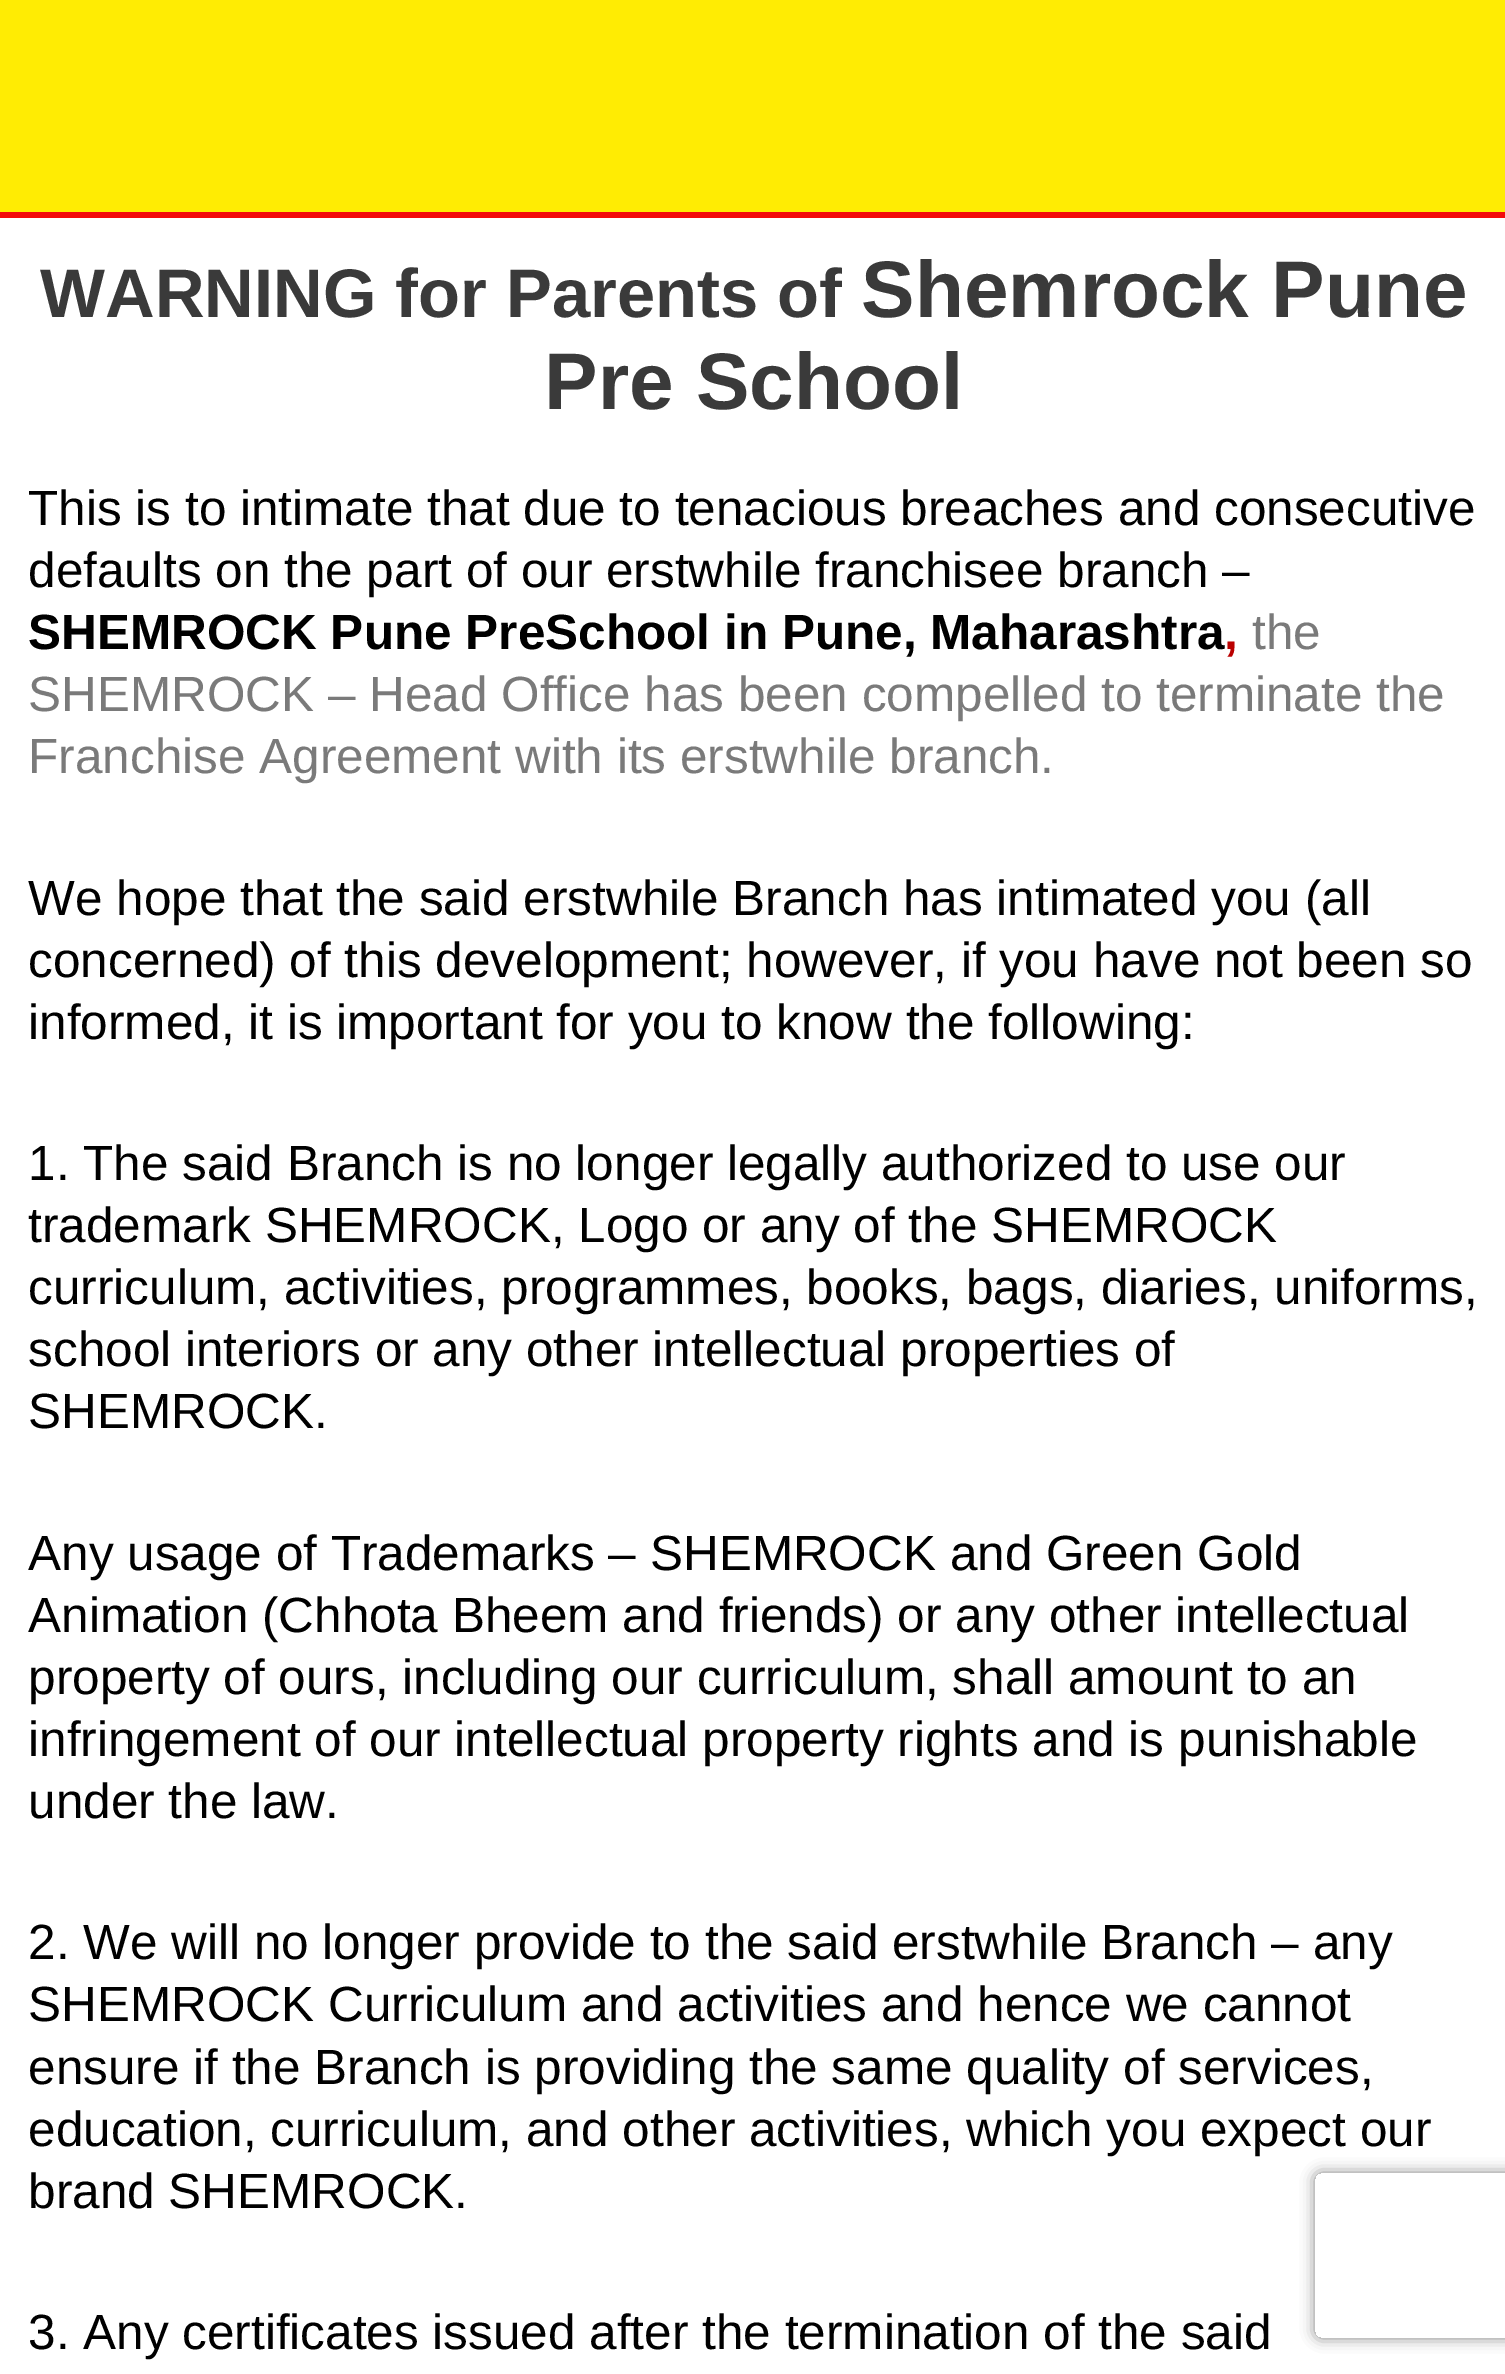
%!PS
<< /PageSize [1505 2374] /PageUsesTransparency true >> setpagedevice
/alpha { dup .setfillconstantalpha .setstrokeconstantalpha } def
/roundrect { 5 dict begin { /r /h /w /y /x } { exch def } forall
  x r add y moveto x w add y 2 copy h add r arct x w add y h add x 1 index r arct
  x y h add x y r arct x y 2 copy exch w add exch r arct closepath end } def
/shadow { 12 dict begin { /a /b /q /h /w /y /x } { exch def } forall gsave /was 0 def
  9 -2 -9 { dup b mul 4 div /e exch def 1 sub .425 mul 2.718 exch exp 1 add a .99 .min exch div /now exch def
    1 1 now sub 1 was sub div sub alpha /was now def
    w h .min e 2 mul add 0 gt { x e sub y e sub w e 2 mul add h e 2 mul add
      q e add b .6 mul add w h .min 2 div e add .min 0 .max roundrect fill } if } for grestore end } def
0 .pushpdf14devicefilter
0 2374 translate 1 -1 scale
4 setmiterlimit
1 setgray
0 0 1505 2374 rectfill
1 0.925 0.012 setrgbcolor
0 0 1505 212 rectfill
0.953 0.047 0.047 setrgbcolor
0 212 1505 6 rectfill
/LiberationSans-Bold [68.75 0 0 -68.75 0 0] selectfont
0.227 setgray
40 317 moveto (WARNING for Parents of) show
/LiberationSans-Bold [80.25 0 0 -80.25 0 0] selectfont
861 317 moveto (Shemrock Pune) show
544 409 moveto (Pre School) show
/LiberationSans-Regular [49.5 0 0 -49.5 0 0] selectfont
0 setgray
28 525 moveto (This is to intimate that due to tenacious breaches and consecutive) show
28 587 moveto (defaults on the part of our erstwhile franchisee branch –) show
/LiberationSans-Bold [49.5 0 0 -49.5 0 0] selectfont
28 649 moveto (SHEMROCK Pune PreSchool in Pune, Maharashtra) show
0.729 0 0 setrgbcolor
1224 649 moveto (,) show
/LiberationSans-Regular [49.5 0 0 -49.5 0 0] selectfont
0.478 setgray
1252 649 moveto (the) show
28 711 moveto (SHEMROCK – Head Office has been compelled to terminate the) show
28 773 moveto (Franchise Agreement with its erstwhile branch.) show
0 setgray
28 915 moveto (We hope that the said erstwhile Branch has intimated you \(all) show
28 977 moveto (concerned\) of this development; however, if you have not been so) show
28 1039 moveto (informed, it is important for you to know the following:) show
28 1180 moveto (1. The said Branch is no longer legally authorized to use our) show
28 1242 moveto (trademark SHEMROCK, Logo or any of the SHEMROCK) show
28 1304 moveto (curriculum, activities, programmes, books, bags, diaries, uniforms,) show
28 1366 moveto (school interiors or any other intellectual properties of) show
28 1428 moveto (SHEMROCK.) show
28 1570 moveto (Any usage of Trademarks – SHEMROCK and Green Gold) show
28 1632 moveto (Animation \(Chhota Bheem and friends\) or any other intellectual) show
28 1694 moveto (property of ours, including our curriculum, shall amount to an) show
28 1756 moveto (infringement of our intellectual property rights and is punishable) show
28 1818 moveto (under the law.) show
28 1959 moveto (2. We will no longer provide to the said erstwhile Branch – any) show
28 2021 moveto (SHEMROCK Curriculum and activities and hence we cannot) show
28 2084 moveto (ensure if the Branch is providing the same quality of services,) show
28 2146 moveto (education, curriculum, and other activities, which you expect our) show
28 2208 moveto (brand SHEMROCK.) show
28 2349 moveto (3. Any certificates issued after the termination of the said) show
gsave
newpath 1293 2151 moveto 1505 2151 lineto 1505 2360 lineto 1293 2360 lineto closepath 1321 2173 moveto 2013 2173 lineto 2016.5 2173 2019 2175.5 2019 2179 curveto 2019 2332 lineto 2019 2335.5 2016.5 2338 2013 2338 curveto 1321 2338 lineto 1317.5 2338 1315 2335.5 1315 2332 curveto 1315 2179 lineto 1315 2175.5 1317.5 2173 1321 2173 curveto closepath eoclip newpath
0.502 setgray
1315 2173 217 165 6 7 1 shadow
grestore
.poppdf14devicefilter showpage
